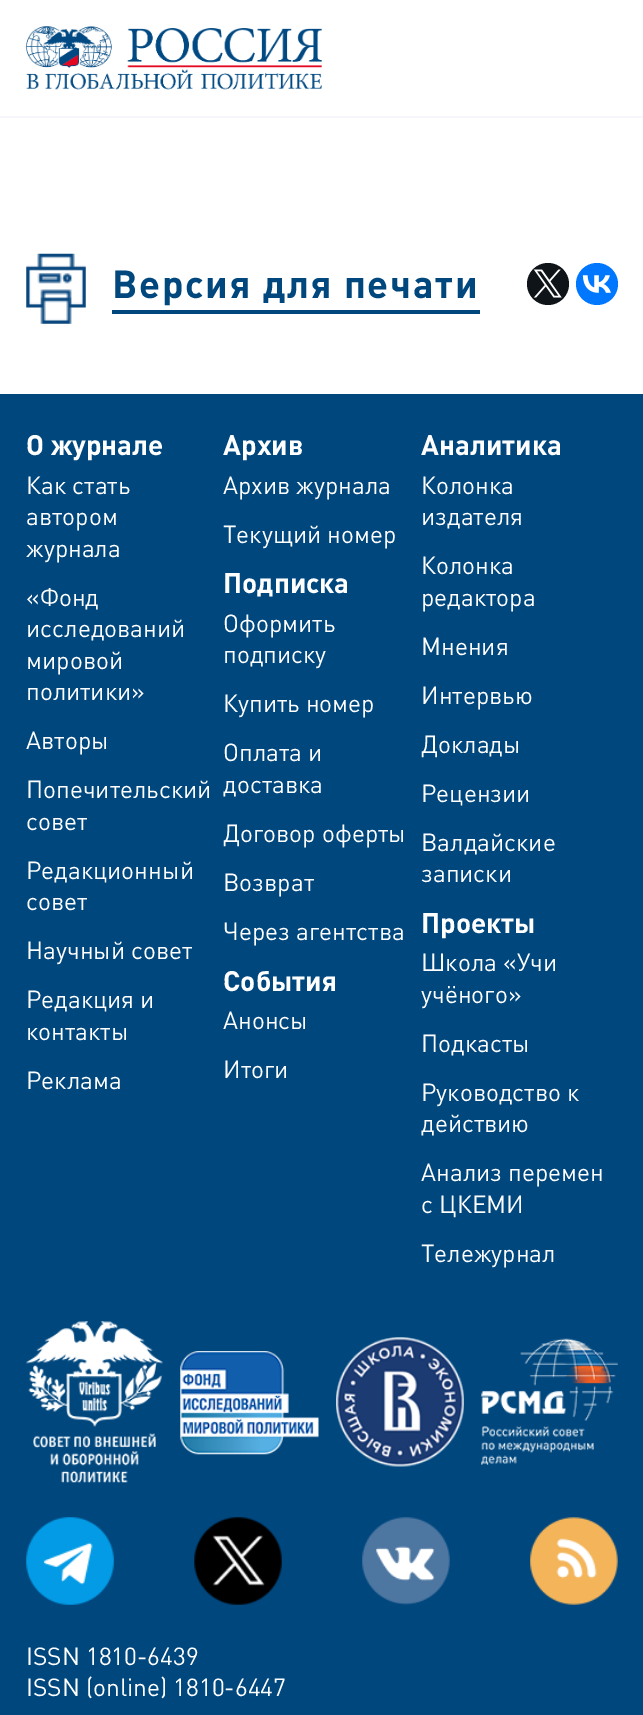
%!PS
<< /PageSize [643 1715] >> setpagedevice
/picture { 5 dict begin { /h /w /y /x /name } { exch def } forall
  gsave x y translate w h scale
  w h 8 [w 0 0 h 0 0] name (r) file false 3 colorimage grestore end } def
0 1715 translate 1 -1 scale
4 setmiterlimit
1 setgray
0 0 643 1715 rectfill
0.969 0.969 0.984 setrgbcolor
0 116 643 2 rectfill
(img1.rgb) 26 26 296 64 picture
(img2.rgb) 26 253 60 71 picture
0 0.278 0.494 setrgbcolor
112 310 368 4 rectfill
/DIN-Bold [38.5 0 0 -38.5 0 0] selectfont
112 298 moveto 1.75 0 (Версия для печати) ashow
0.059 0.078 0.098 setrgbcolor
newpath 548 284 21 0 360 arc closepath fill
(img3.rgb) 533 269 29 29 picture
0 0.467 1 setrgbcolor
newpath 597 284 21 0 360 arc closepath fill
(img4.rgb) 582 275 29 18 picture
0 0.278 0.494 setrgbcolor
0 394 643 1321 rectfill
/DIN-Bold [28 0 0 -28 0 0] selectfont
1 setgray
26 455 moveto (О журнале) show
/DIN-Regular [24.5 0 0 -24.5 0 0] selectfont
26 494 moveto (Как стать) show
26 525 moveto (автором) show
26 557 moveto (журнала) show
26 606 moveto («Фонд) show
26 637 moveto (исследований) show
26 669 moveto (мировой) show
26 700 moveto (политики») show
26 749 moveto (Авторы) show
26 798 moveto (Попечительский) show
26 830 moveto (совет) show
26 879 moveto (Редакционный) show
26 910 moveto (совет) show
26 959 moveto (Научный совет) show
26 1008 moveto (Редакция и) show
26 1040 moveto (контакты) show
26 1089 moveto (Реклама) show
/DIN-Bold [28 0 0 -28 0 0] selectfont
223 455 moveto (Архив) show
/DIN-Regular [24.5 0 0 -24.5 0 0] selectfont
223 494 moveto (Архив журнала) show
223 543 moveto (Текущий номер) show
/DIN-Bold [28 0 0 -28 0 0] selectfont
223 593 moveto (Подписка) show
/DIN-Regular [24.5 0 0 -24.5 0 0] selectfont
223 632 moveto (Оформить) show
223 663 moveto (подписку) show
223 712 moveto (Купить номер) show
223 761 moveto (Оплата и) show
223 793 moveto (доставка) show
223 842 moveto (Договор оферты) show
223 891 moveto (Возврат) show
223 940 moveto (Через агентства) show
/DIN-Bold [28 0 0 -28 0 0] selectfont
223 991 moveto (События) show
/DIN-Regular [24.5 0 0 -24.5 0 0] selectfont
223 1029 moveto (Анонсы) show
223 1078 moveto (Итоги) show
/DIN-Bold [28 0 0 -28 0 0] selectfont
421 455 moveto (Аналитика) show
/DIN-Regular [24.5 0 0 -24.5 0 0] selectfont
421 494 moveto (Колонка) show
421 525 moveto (издателя) show
421 574 moveto (Колонка) show
421 606 moveto (редактора) show
421 655 moveto (Мнения) show
421 704 moveto (Интервью) show
421 753 moveto (Доклады) show
421 802 moveto (Рецензии) show
421 851 moveto (Валдайские) show
421 882 moveto (записки) show
/DIN-Bold [28 0 0 -28 0 0] selectfont
421 933 moveto (Проекты) show
/DIN-Regular [24.5 0 0 -24.5 0 0] selectfont
421 971 moveto (Школа «Учи) show
421 1003 moveto (учёного») show
421 1052 moveto (Подкасты) show
421 1101 moveto (Руководство к) show
421 1132 moveto (действию) show
421 1181 moveto (Анализ перемен) show
421 1213 moveto (с ЦКЕМИ) show
421 1262 moveto (Тележурнал) show
(img5.rgb) 26 1321 137 162 picture
(img6.rgb) 180 1351 139 104 picture
(img7.rgb) 336 1337 128 130 picture
(img8.rgb) 481 1338 137 127 picture
(img9.rgb) 26 1517 88 88 picture
(img10.rgb) 194 1517 88 88 picture
(img11.rgb) 362 1517 88 88 picture
(img12.rgb) 530 1517 88 88 picture
26 1665 moveto (ISSN 1810-6439) show
26 1696 moveto (ISSN \(online\) 1810-6447) show
showpage
